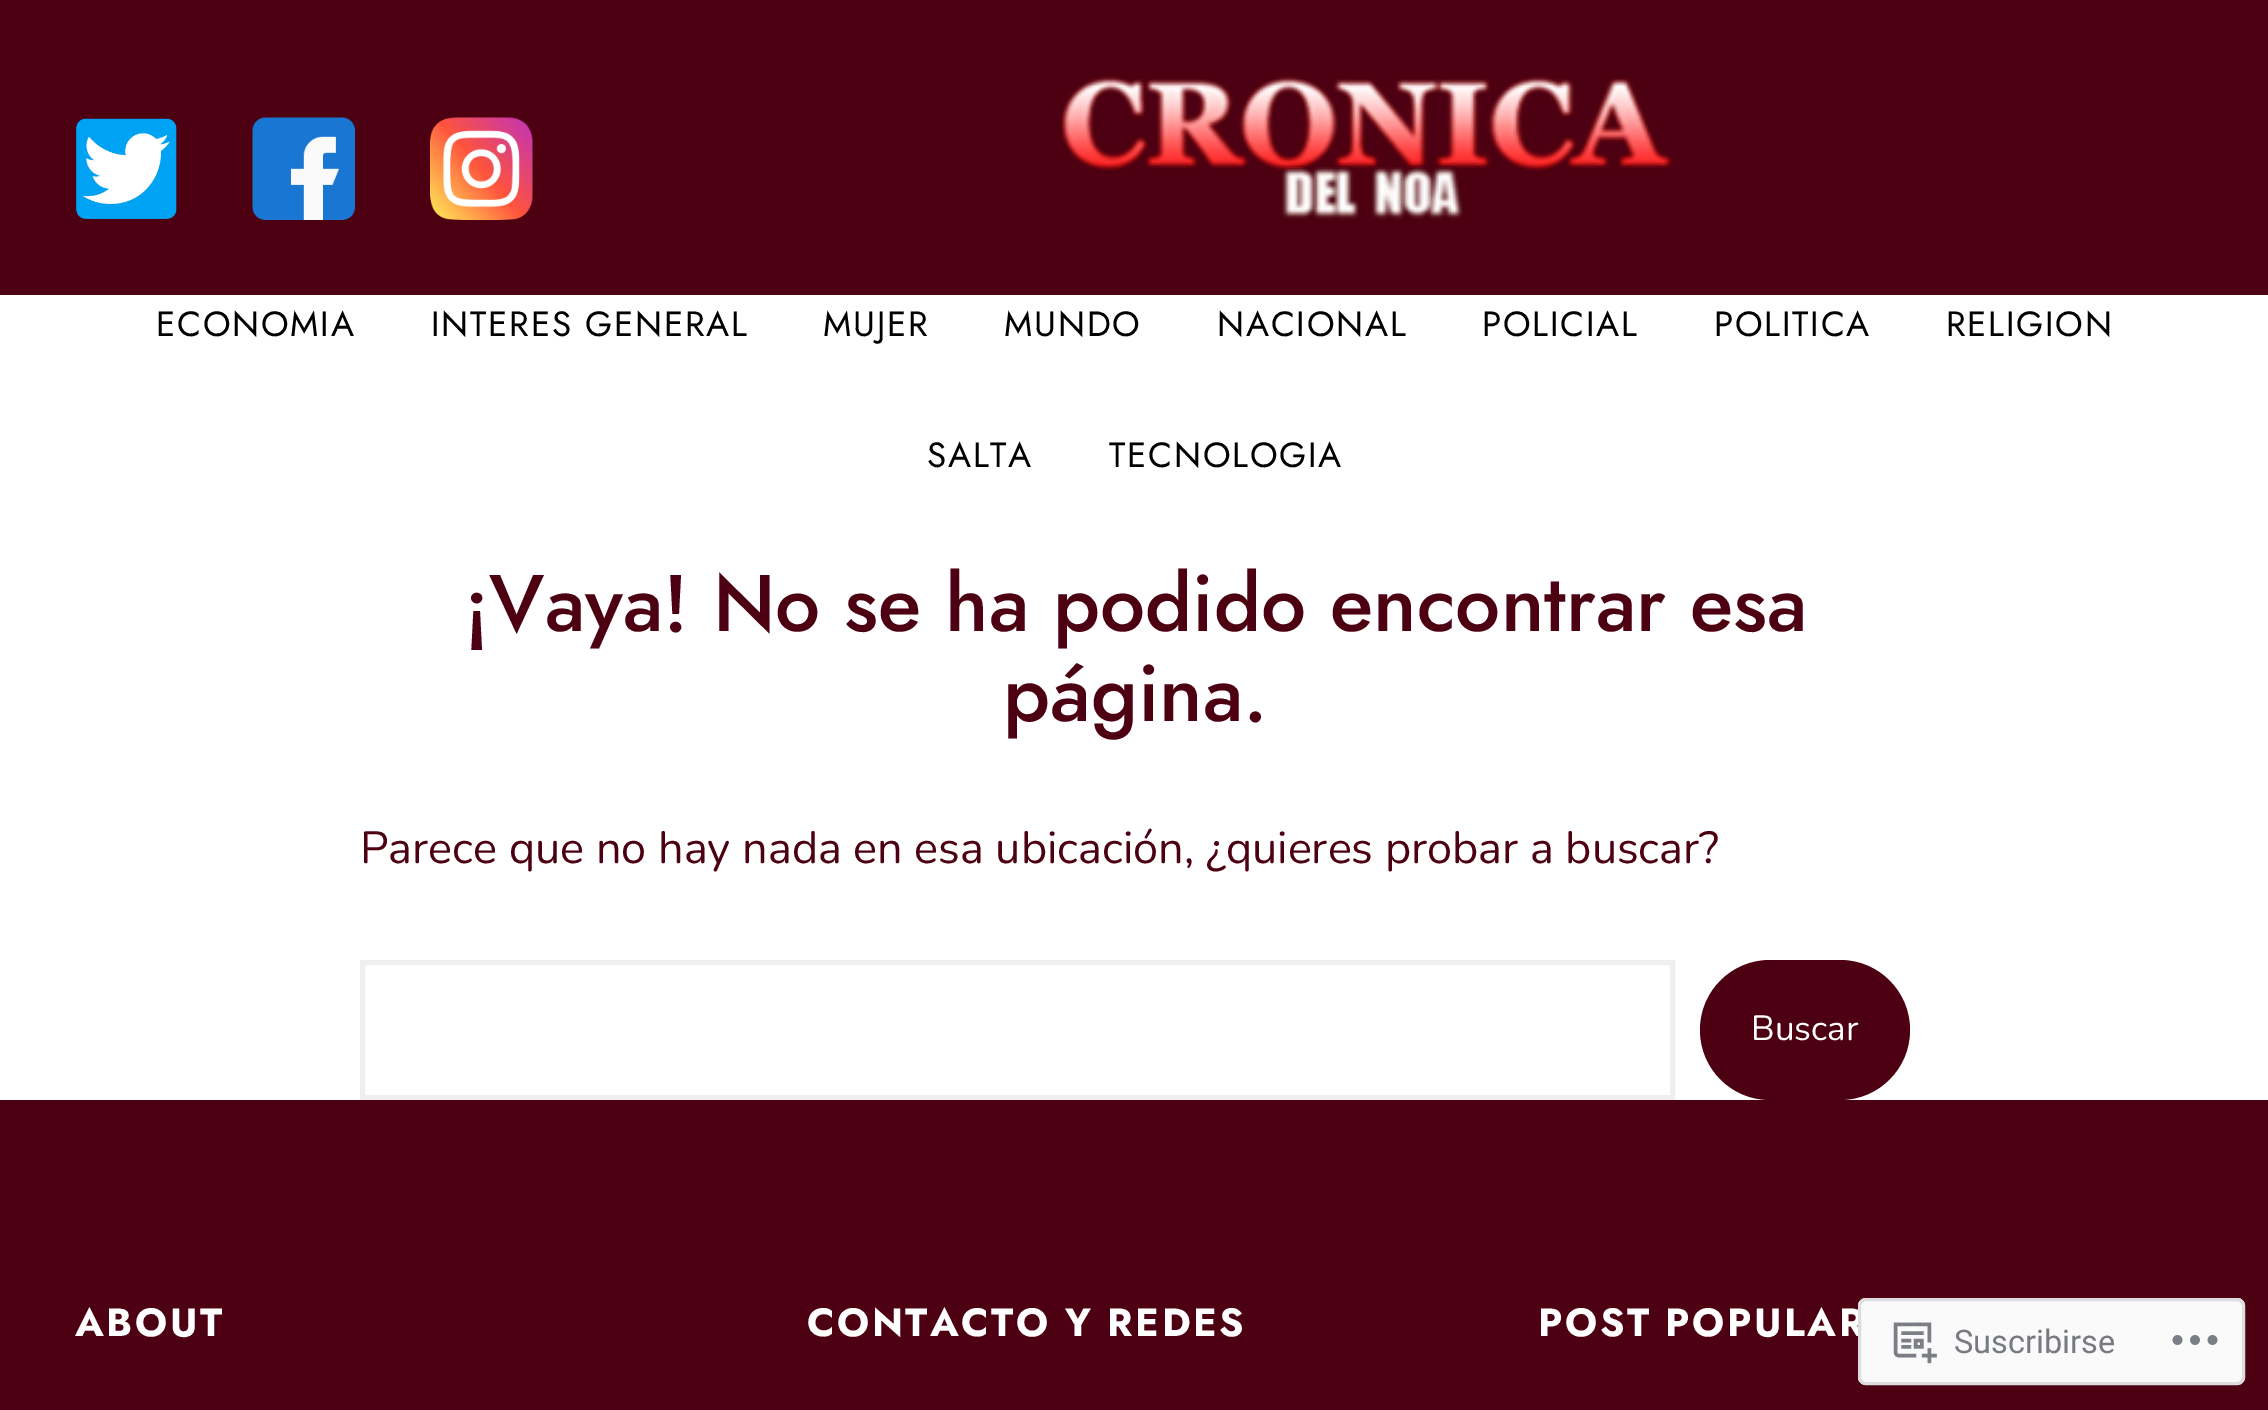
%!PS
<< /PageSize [2268 1410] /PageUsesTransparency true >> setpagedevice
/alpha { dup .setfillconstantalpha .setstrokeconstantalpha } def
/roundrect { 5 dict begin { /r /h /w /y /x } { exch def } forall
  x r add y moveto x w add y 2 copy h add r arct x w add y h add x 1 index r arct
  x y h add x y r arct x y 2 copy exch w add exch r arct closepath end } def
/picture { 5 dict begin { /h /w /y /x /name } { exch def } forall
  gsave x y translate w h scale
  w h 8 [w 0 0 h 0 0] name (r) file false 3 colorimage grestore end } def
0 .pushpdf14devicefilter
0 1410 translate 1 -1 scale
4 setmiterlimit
1 setgray
0 0 2268 1410 rectfill
0.298 0 0.071 setrgbcolor
0 0 2268 295 rectfill
(img1.rgb) 76 118 101 101 picture
(img2.rgb) 252 117 103 103 picture
(img3.rgb) 430 117 103 103 picture
(img4.rgb) 1060 76 614 144 picture
/Jost-Regular [35 0 0 -35 0 0] selectfont
0 setgray
156 336 moveto 1.75 0 (ECONOMIA) ashow
431 336 moveto 1.75 0 (INTERES GENERAL) ashow
823 336 moveto 1.75 0 (MUJER) ashow
1004 336 moveto 1.75 0 (MUNDO) ashow
1217 336 moveto 1.75 0 (NACIONAL) ashow
1482 336 moveto 1.75 0 (POLICIAL) ashow
1714 336 moveto 1.75 0 (POLITICA) ashow
1946 336 moveto 1.75 0 (RELIGION) ashow
927 467 moveto 1.75 0 (SALTA) ashow
1109 467 moveto 1.75 0 (TECNOLOGIA) ashow
/Jost-Medium [80 0 0 -80 0 0] selectfont
0.298 0 0.071 setrgbcolor
464 631 moveto (¡Vaya! No se ha podido encontrar esa) show
1003 721 moveto (página.) show
/Nunito-Regular [45 0 0 -45 0 0] selectfont
360 863 moveto (Parece que no hay nada en esa ubicación, ¿quieres probar a buscar?) show
0.937 setgray
5 setlinewidth
362.5 962.5 1310 135 rectstroke
0.298 0 0.071 setrgbcolor
1700 960 210 140 70 roundrect fill
/Nunito-Regular [35 0 0 -35 0 0] selectfont
1 setgray
1751 1040 moveto (Buscar) show
0.298 0 0.071 setrgbcolor
0 1100 2268 310 rectfill
/Jost-Bold [39.25 0 0 -39.25 0 0] selectfont
1 setgray
75 1336 moveto 2.5 0 (ABOUT) ashow
807 1336 moveto 2.5 0 (CONTACTO Y REDES) ashow
1538 1336 moveto 2.5 0 (POST POPULAR) ashow
0.98 alpha
1858 1298 387 87 8 roundrect fill
0.863 0.863 0.871 setrgbcolor
3 setlinewidth
1859.5 1299.5 384 84 6.5 roundrect stroke
1 alpha
(img5.rgb) 1893 1322 44 42 picture
/Roboto-Regular [32.5 0 0 -32.5 0 0] selectfont
0.467 0.478 0.502 setrgbcolor
1954 1353 moveto (Suscribirse) show
(img6.rgb) 2172 1335 46 10 picture
.poppdf14devicefilter showpage
